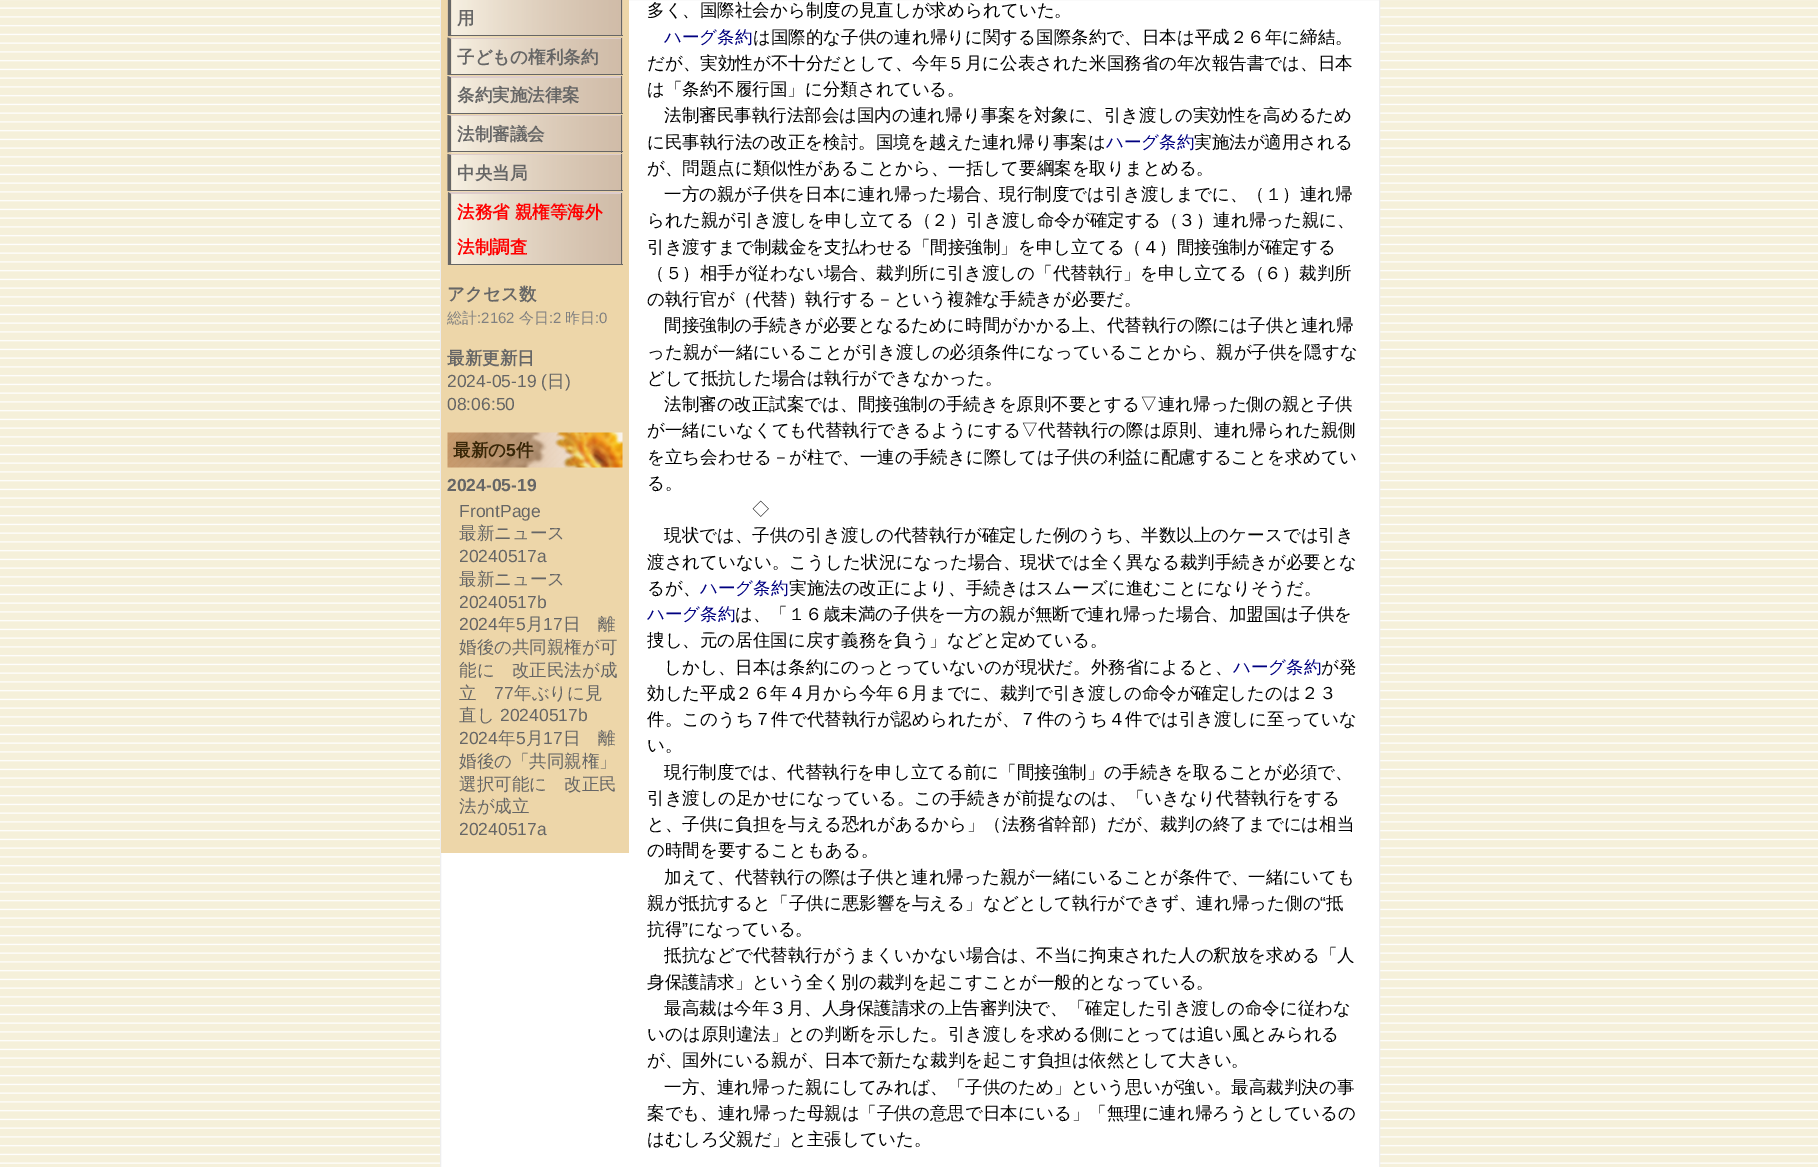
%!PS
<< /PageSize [1818 1167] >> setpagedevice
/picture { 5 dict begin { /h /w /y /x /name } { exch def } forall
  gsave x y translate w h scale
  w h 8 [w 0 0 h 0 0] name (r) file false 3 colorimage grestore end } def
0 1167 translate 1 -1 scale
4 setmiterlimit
1 setgray
0 0 1818 1167 rectfill
(img1.rgb) 0 0 1818 1167 picture
newpath 440.5 -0.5 moveto 1379.5 -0.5 lineto 1379.5 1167.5 lineto 440.5 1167.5 lineto closepath gsave fill grestore
0.933 setgray
stroke
0.929 0.839 0.663 setrgbcolor
441 0 188 853 rectfill
(img2.rgb) 447 0 176 37 picture
0.4 setgray
621 0 1 36 rectfill
448 35 175 1 rectfill
newpath 448 36 moveto 448 -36 lineto 451 -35 lineto 451 35 lineto closepath fill
/WenQuanYiZenHei-Bold [17.5 0 0 -17.5 0 0] selectfont
457 24 moveto (用) show
(img3.rgb) 447 37 176 38 picture
0.867 0.8 0.8 setrgbcolor
newpath 448 38 moveto 622 38 lineto 621 39 lineto 451 39 lineto closepath fill
0.4 setgray
621 38 1 37 rectfill
448 74 175 1 rectfill
newpath 447.5 75 moveto 447.5 37.5 lineto 451 39 lineto 451 74 lineto closepath fill
457 63 moveto (子どもの権利条約) show
(img4.rgb) 447 76 176 38 picture
0.867 0.8 0.8 setrgbcolor
newpath 448 76 moveto 622 76 lineto 621 78 lineto 451 78 lineto closepath fill
0.4 setgray
621 76 1 38 rectfill
448 113 175 1 rectfill
newpath 447.5 114 moveto 447.5 76 lineto 451 77.5 lineto 451 112.5 lineto closepath fill
457 101 moveto (条約実施法律案) show
(img5.rgb) 447 115 176 38 picture
0.867 0.8 0.8 setrgbcolor
newpath 448 115 moveto 622 115 lineto 621 116 lineto 451 116 lineto closepath fill
0.4 setgray
621 115 1 38 rectfill
448 151 175 1 rectfill
newpath 447.5 152.5 moveto 447.5 115 lineto 451 116 lineto 451 151 lineto closepath fill
457 140 moveto (法制審議会) show
(img6.rgb) 447 153 176 39 picture
0.867 0.8 0.8 setrgbcolor
newpath 448 154 moveto 622 154 lineto 621 155 lineto 451 155 lineto closepath fill
0.4 setgray
621 154 1 37 rectfill
448 190 175 1 rectfill
newpath 447.5 191 moveto 447.5 154 lineto 451 155 lineto 451 190 lineto closepath fill
457 179 moveto (中央当局) show
(img7.rgb) 447 192 176 73 picture
0.867 0.8 0.8 setrgbcolor
newpath 448 192 moveto 622 192 lineto 621 194 lineto 451 194 lineto closepath fill
0.4 setgray
621 193 1 72 rectfill
448 264 175 1 rectfill
newpath 448 265 moveto 448 192 lineto 451 194 lineto 451 264 lineto closepath fill
1 0 0 setrgbcolor
457 218 moveto (法務省 親権等海外) show
457 253 moveto (法制調査) show
0.4 setgray
447 300 moveto (アクセス数) show
/WenQuanYiZenHei-Medium [15 0 0 -15 0 0] selectfont
0.502 setgray
447 323 moveto (総計) show
/LiberationSans-Regular [15 0 0 -15 0 0] selectfont
477 323 moveto (:2162) show
/WenQuanYiZenHei-Medium [15 0 0 -15 0 0] selectfont
519 323 moveto (今日) show
/LiberationSans-Regular [15 0 0 -15 0 0] selectfont
549 323 moveto (:2) show
/WenQuanYiZenHei-Medium [15 0 0 -15 0 0] selectfont
565 323 moveto (昨日) show
/LiberationSans-Regular [15 0 0 -15 0 0] selectfont
595 323 moveto (:0) show
/WenQuanYiZenHei-Bold [17.5 0 0 -17.5 0 0] selectfont
0.4 setgray
447 364 moveto (最新更新日) show
/LiberationSans-Regular [17.5 0 0 -17.5 0 0] selectfont
447 387 moveto (2024-05-19 \() show
/WenQuanYiZenHei-Medium [17.5 0 0 -17.5 0 0] selectfont
547 387 moveto (日) show
/LiberationSans-Regular [17.5 0 0 -17.5 0 0] selectfont
565 387 moveto (\)) show
447 410 moveto (08:06:50) show
(img8.rgb) 447 432 176 36 picture
/WenQuanYiZenHei-Bold [17.5 0 0 -17.5 0 0] selectfont
0.22 0.149 0.027 setrgbcolor
453 456 moveto (最新の) show
/LiberationSans-Bold [17.5 0 0 -17.5 0 0] selectfont
506 456 moveto (5) show
/WenQuanYiZenHei-Bold [17.5 0 0 -17.5 0 0] selectfont
516 456 moveto (件) show
/LiberationSans-Bold [17.5 0 0 -17.5 0 0] selectfont
0.4 setgray
447 491 moveto (2024-05-19) show
/LiberationSans-Regular [17.5 0 0 -17.5 0 0] selectfont
459 517 moveto (FrontPage) show
/WenQuanYiZenHei-Medium [17.5 0 0 -17.5 0 0] selectfont
459 539 moveto (最新ニュース) show
/LiberationSans-Regular [17.5 0 0 -17.5 0 0] selectfont
459 562 moveto (20240517a) show
/WenQuanYiZenHei-Medium [17.5 0 0 -17.5 0 0] selectfont
459 585 moveto (最新ニュース) show
/LiberationSans-Regular [17.5 0 0 -17.5 0 0] selectfont
459 608 moveto (20240517b) show
459 630 moveto (2024) show
/WenQuanYiZenHei-Medium [17.5 0 0 -17.5 0 0] selectfont
498 630 moveto (年) show
/LiberationSans-Regular [17.5 0 0 -17.5 0 0] selectfont
516 630 moveto (5) show
/WenQuanYiZenHei-Medium [17.5 0 0 -17.5 0 0] selectfont
526 630 moveto (月) show
/LiberationSans-Regular [17.5 0 0 -17.5 0 0] selectfont
543 630 moveto (17) show
/WenQuanYiZenHei-Medium [17.5 0 0 -17.5 0 0] selectfont
563 630 moveto (日　離) show
459 653 moveto (婚後の共同親権が可) show
459 676 moveto (能に　改正民法が成) show
459 699 moveto (立) show
/LiberationSans-Regular [17.5 0 0 -17.5 0 0] selectfont
494 699 moveto (77) show
/WenQuanYiZenHei-Medium [17.5 0 0 -17.5 0 0] selectfont
514 699 moveto (年ぶりに見) show
459 721 moveto (直し) show
/LiberationSans-Regular [17.5 0 0 -17.5 0 0] selectfont
500 721 moveto (20240517b) show
459 744 moveto (2024) show
/WenQuanYiZenHei-Medium [17.5 0 0 -17.5 0 0] selectfont
498 744 moveto (年) show
/LiberationSans-Regular [17.5 0 0 -17.5 0 0] selectfont
516 744 moveto (5) show
/WenQuanYiZenHei-Medium [17.5 0 0 -17.5 0 0] selectfont
526 744 moveto (月) show
/LiberationSans-Regular [17.5 0 0 -17.5 0 0] selectfont
543 744 moveto (17) show
/WenQuanYiZenHei-Medium [17.5 0 0 -17.5 0 0] selectfont
563 744 moveto (日　離) show
459 767 moveto (婚後の「共同親権」) show
459 790 moveto (選択可能に　改正民) show
459 812 moveto (法が成立) show
/LiberationSans-Regular [17.5 0 0 -17.5 0 0] selectfont
459 835 moveto (20240517a) show
/WenQuanYiZenHei-Medium [17.5 0 0 -17.5 0 0] selectfont
0 setgray
647 16 moveto (多く、国際社会から制度の見直しが求められていた。) show
0 0 0.502 setrgbcolor
664 43 moveto (ハーグ条約) show
0 setgray
753 43 moveto (は国際的な子供の連れ帰りに関する国際条約で、日本は平成２６年に締結。) show
647 69 moveto (だが、実効性が不十分だとして、今年５月に公表された米国務省の年次報告書では、日本) show
647 95 moveto (は「条約不履行国」に分類されている。) show
664 121 moveto (法制審民事執行法部会は国内の連れ帰り事案を対象に、引き渡しの実効性を高めるため) show
647 148 moveto (に民事執行法の改正を検討。国境を越えた連れ帰り事案は) show
0 0 0.502 setrgbcolor
1106 148 moveto (ハーグ条約) show
0 setgray
1194 148 moveto (実施法が適用される) show
647 174 moveto (が、問題点に類似性があることから、一括して要綱案を取りまとめる。) show
664 200 moveto (一方の親が子供を日本に連れ帰った場合、現行制度では引き渡しまでに、（１）連れ帰) show
647 226 moveto (られた親が引き渡しを申し立てる（２）引き渡し命令が確定する（３）連れ帰った親に、) show
647 253 moveto (引き渡すまで制裁金を支払わせる「間接強制」を申し立てる（４）間接強制が確定する) show
647 279 moveto (（５）相手が従わない場合、裁判所に引き渡しの「代替執行」を申し立てる（６）裁判所) show
647 305 moveto (の執行官が（代替）執行する－という複雑な手続きが必要だ。) show
664 331 moveto (間接強制の手続きが必要となるために時間がかかる上、代替執行の際には子供と連れ帰) show
647 358 moveto (った親が一緒にいることが引き渡しの必須条件になっていることから、親が子供を隠すな) show
647 384 moveto (どして抵抗した場合は執行ができなかった。) show
664 410 moveto (法制審の改正試案では、間接強制の手続きを原則不要とする▽連れ帰った側の親と子供) show
647 436 moveto (が一緒にいなくても代替執行できるようにする▽代替執行の際は原則、連れ帰られた親側) show
647 463 moveto (を立ち会わせる－が柱で、一連の手続きに際しては子供の利益に配慮することを求めてい) show
647 489 moveto (る。) show
752 515 moveto (◇) show
664 541 moveto (現状では、子供の引き渡しの代替執行が確定した例のうち、半数以上のケースでは引き) show
647 568 moveto (渡されていない。こうした状況になった場合、現状では全く異なる裁判手続きが必要とな) show
647 594 moveto (るが、) show
0 0 0.502 setrgbcolor
700 594 moveto (ハーグ条約) show
0 setgray
789 594 moveto (実施法の改正により、手続きはスムーズに進むことになりそうだ。) show
0 0 0.502 setrgbcolor
647 620 moveto (ハーグ条約) show
0 setgray
735 620 moveto (は、「１６歳未満の子供を一方の親が無断で連れ帰った場合、加盟国は子供を) show
647 646 moveto (捜し、元の居住国に戻す義務を負う」などと定めている。) show
664 673 moveto (しかし、日本は条約にのっとっていないのが現状だ。外務省によると、) show
0 0 0.502 setrgbcolor
1233 673 moveto (ハーグ条約) show
0 setgray
1321 673 moveto (が発) show
647 699 moveto (効した平成２６年４月から今年６月までに、裁判で引き渡しの命令が確定したのは２３) show
647 725 moveto (件。このうち７件で代替執行が認められたが、７件のうち４件では引き渡しに至っていな) show
647 751 moveto (い。) show
664 778 moveto (現行制度では、代替執行を申し立てる前に「間接強制」の手続きを取ることが必須で、) show
647 804 moveto (引き渡しの足かせになっている。この手続きが前提なのは、「いきなり代替執行をする) show
647 830 moveto (と、子供に負担を与える恐れがあるから」（法務省幹部）だが、裁判の終了までには相当) show
647 856 moveto (の時間を要することもある。) show
664 883 moveto (加えて、代替執行の際は子供と連れ帰った親が一緒にいることが条件で、一緒にいても) show
647 909 moveto (親が抵抗すると「子供に悪影響を与える」などとして執行ができず、連れ帰った側の) show
/LiberationSans-Regular [17.5 0 0 -17.5 0 0] selectfont
1320 909 moveto (“) show
/WenQuanYiZenHei-Medium [17.5 0 0 -17.5 0 0] selectfont
1326 909 moveto (抵) show
647 935 moveto (抗得) show
/LiberationSans-Regular [17.5 0 0 -17.5 0 0] selectfont
682 935 moveto (”) show
/WenQuanYiZenHei-Medium [17.5 0 0 -17.5 0 0] selectfont
688 935 moveto (になっている。) show
664 961 moveto (抵抗などで代替執行がうまくいかない場合は、不当に拘束された人の釈放を求める「人) show
647 988 moveto (身保護請求」という全く別の裁判を起こすことが一般的となっている。) show
664 1014 moveto (最高裁は今年３月、人身保護請求の上告審判決で、「確定した引き渡しの命令に従わな) show
647 1040 moveto (いのは原則違法」との判断を示した。引き渡しを求める側にとっては追い風とみられる) show
647 1066 moveto (が、国外にいる親が、日本で新たな裁判を起こす負担は依然として大きい。) show
664 1093 moveto (一方、連れ帰った親にしてみれば、「子供のため」という思いが強い。最高裁判決の事) show
647 1119 moveto (案でも、連れ帰った母親は「子供の意思で日本にいる」「無理に連れ帰ろうとしているの) show
647 1145 moveto (はむしろ父親だ」と主張していた。) show
showpage
